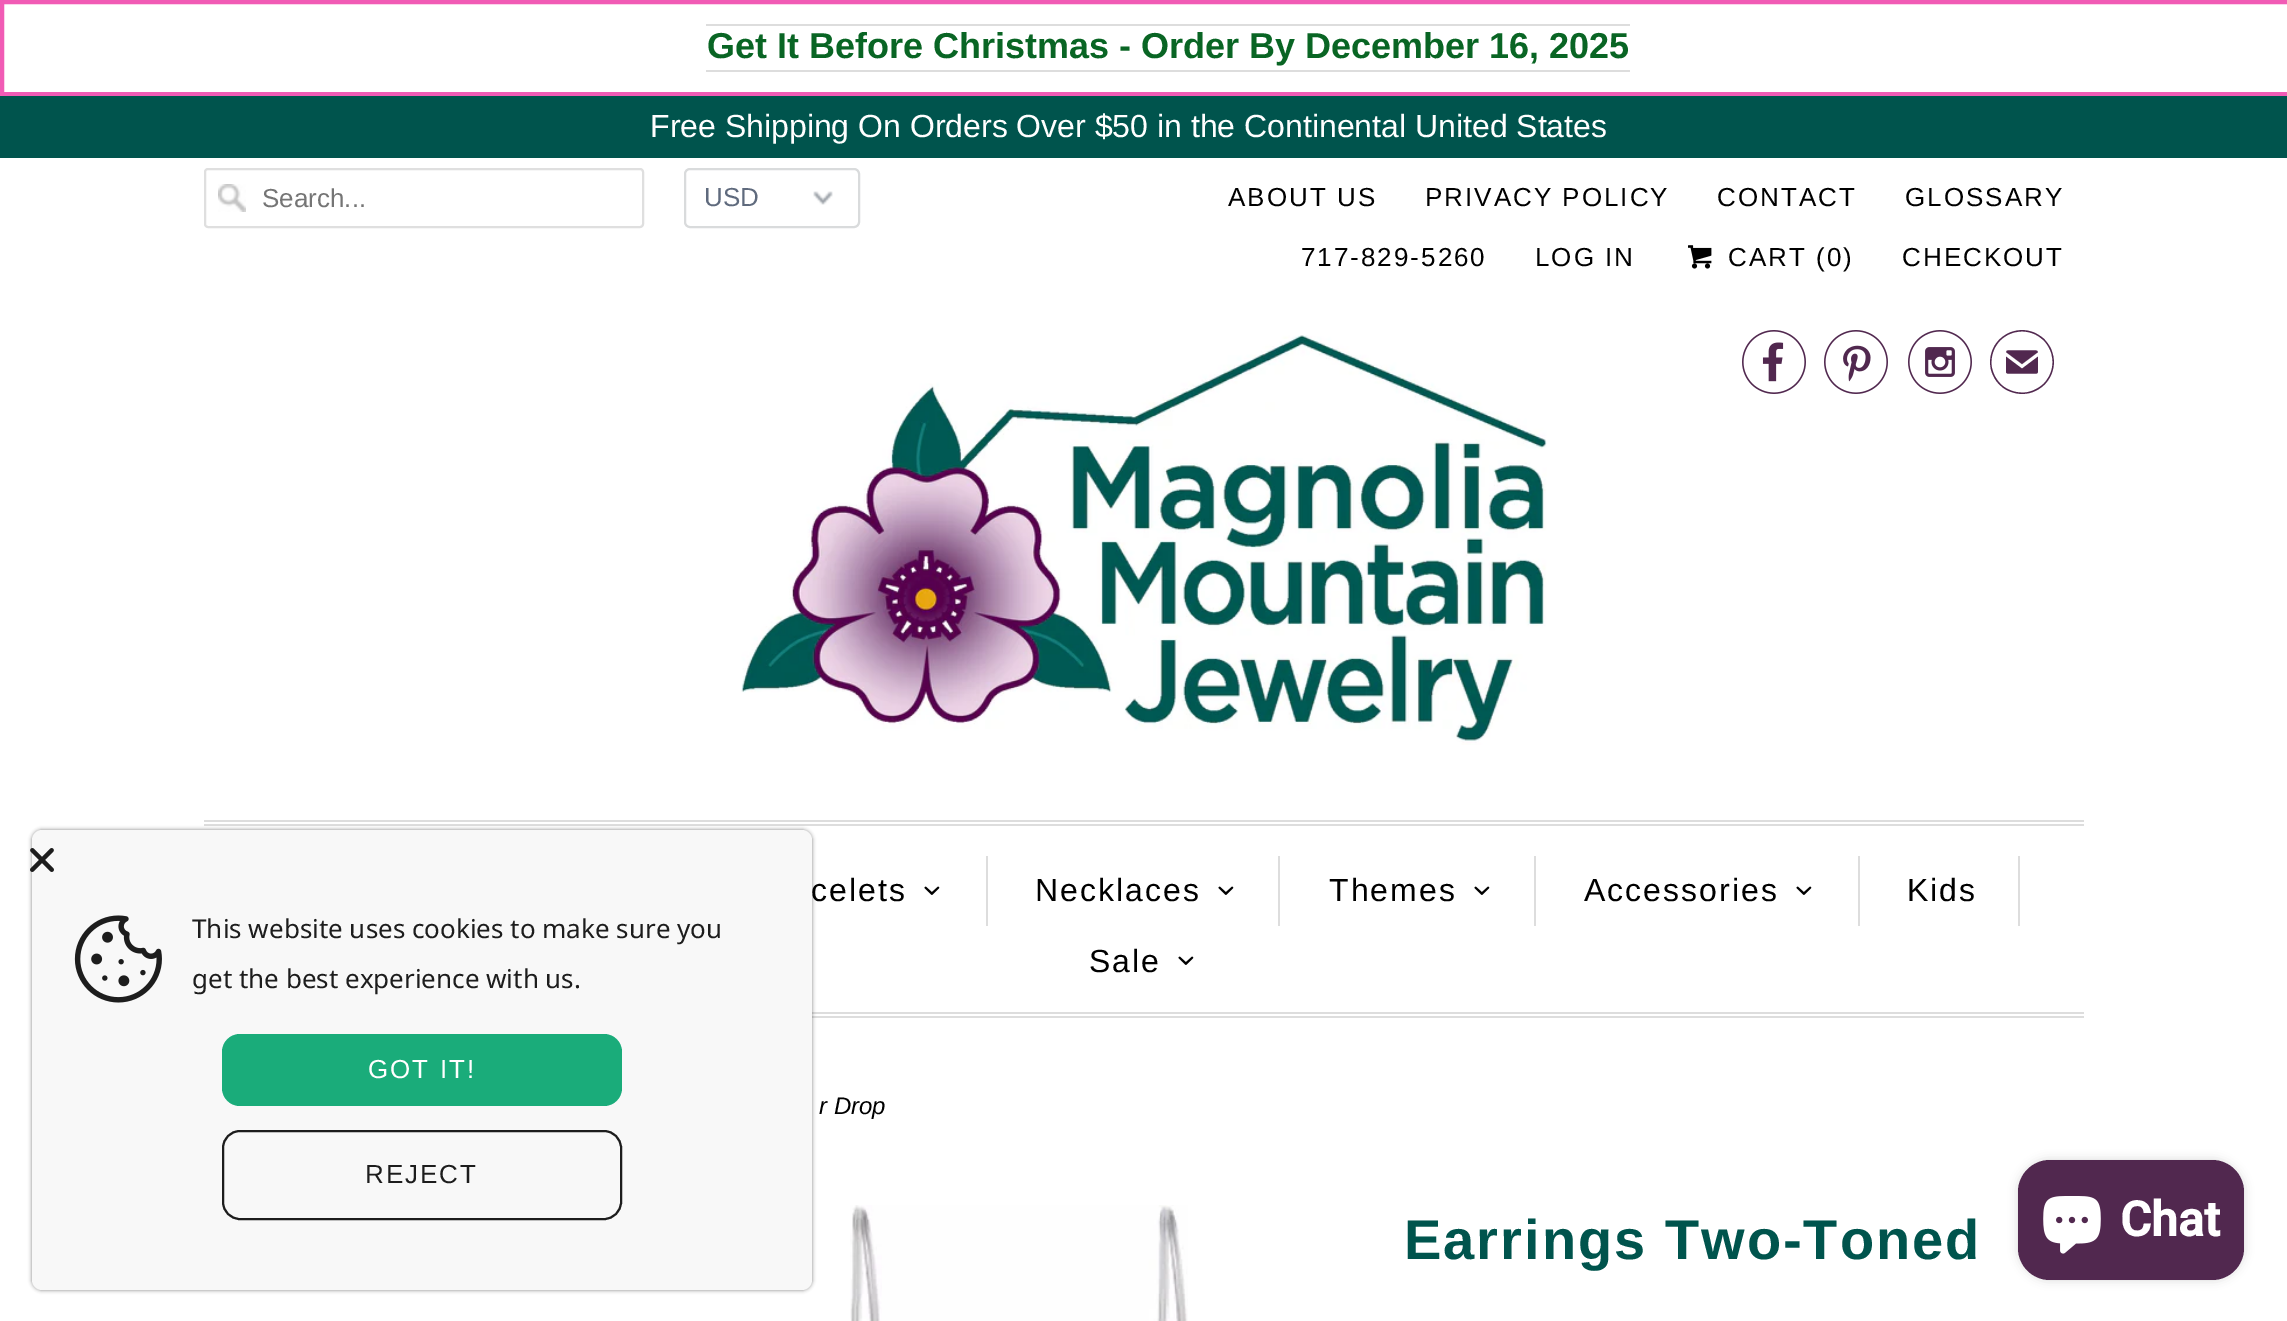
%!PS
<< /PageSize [2287 1321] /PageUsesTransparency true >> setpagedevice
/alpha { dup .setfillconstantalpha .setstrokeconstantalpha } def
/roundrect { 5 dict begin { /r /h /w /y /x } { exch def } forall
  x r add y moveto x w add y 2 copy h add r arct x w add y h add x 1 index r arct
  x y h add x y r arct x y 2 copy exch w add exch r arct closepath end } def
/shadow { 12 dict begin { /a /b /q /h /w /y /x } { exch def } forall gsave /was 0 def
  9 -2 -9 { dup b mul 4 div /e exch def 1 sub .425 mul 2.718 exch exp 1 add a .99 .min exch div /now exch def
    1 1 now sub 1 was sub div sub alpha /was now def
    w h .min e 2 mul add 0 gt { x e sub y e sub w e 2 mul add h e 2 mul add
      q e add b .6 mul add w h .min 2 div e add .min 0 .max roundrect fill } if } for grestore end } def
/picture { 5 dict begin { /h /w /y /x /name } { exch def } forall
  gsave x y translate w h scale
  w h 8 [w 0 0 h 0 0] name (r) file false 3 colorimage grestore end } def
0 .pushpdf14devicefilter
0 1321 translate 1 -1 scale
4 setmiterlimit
1 setgray
0 0 2287 1321 rectfill
0.945 0.357 0.71 setrgbcolor
4 setlinewidth
2 2 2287 92 rectstroke
0.867 setgray
706 24 924 2 rectfill
706 70 924 2 rectfill
/LiberationSans-Bold [36 0 0 -36 0 0] selectfont
0.035 0.396 0.141 setrgbcolor
707 58 moveto (Get It Before Christmas - Order By December 16, 2025) show
0 0.329 0.302 setrgbcolor
0 96 2287 62 rectfill
/LiberationSans-Regular [32 0 0 -32 0 0] selectfont
1 setgray
650 137 moveto (Free Shipping On Orders Over $50 in the Continental United States) show
(img1.rgb) 218 184 28 28 picture
0.875 setgray
2 setlinewidth
205 169 438 58 3 roundrect stroke
/LiberationSans-Regular [26 0 0 -26 0 0] selectfont
0.459 setgray
262 207 moveto (Search...) show
(img2.rgb) 813 191 20 14 picture
0.851 0.859 0.863 setrgbcolor
685 169 174 58 5 roundrect stroke
0.373 0.416 0.49 setrgbcolor
704 206 moveto (USD) show
0 setgray
1228 206 moveto 2 0 (ABOUT US) ashow
1425 206 moveto 2 0 (PRIVACY POLICY) ashow
1717 206 moveto 2 0 (CONTACT) ashow
1905 206 moveto 2 0 (GLOSSARY) ashow
1301 266 moveto 2 0 (717-829-5260) ashow
1535 266 moveto 2 0 (LOG IN) ashow
(img3.rgb) 1688 245 24 24 picture
1728 266 moveto 2 0 (CART \(0\)) ashow
1902 266 moveto 2 0 (CHECKOUT) ashow
(img4.rgb) 741 335 806 410 picture
(img5.rgb) 1742 330 64 64 picture
(img6.rgb) 1824 330 64 64 picture
(img7.rgb) 1908 330 64 64 picture
/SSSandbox-Regular [64 0 0 -64 0 0] selectfont
0.318 0.157 0.31 setrgbcolor
1990 394 moveto (✉) show
0.867 setgray
204 820 1880 2 rectfill
204 824 1880 2 rectfill
812 1012 1272 2 rectfill
812 1016 1272 2 rectfill
986 856 2 70 rectfill
/LiberationSans-Regular [32 0 0 -32 0 0] selectfont
0 setgray
811 901 moveto 2 0 (celets) ashow
(img8.rgb) 924 886 16 9 picture
0.867 setgray
1278 856 2 70 rectfill
0 setgray
1035 901 moveto 2 0 (Necklaces) ashow
(img8.rgb) 1218 886 16 9 picture
0.867 setgray
1534 856 2 70 rectfill
0 setgray
1329 901 moveto 2 0 (Themes) ashow
(img8.rgb) 1474 886 16 9 picture
0.867 setgray
1858 856 2 70 rectfill
0 setgray
1584 901 moveto 2 0 (Accessories) ashow
(img8.rgb) 1796 886 16 9 picture
0.867 setgray
2018 856 2 70 rectfill
0 setgray
1907 901 moveto 2 0 (Kids) ashow
1089 972 moveto 2 0 (Sale) ashow
(img8.rgb) 1178 956 16 9 picture
32 830 780 460 10 2 0.5 shadow
0.973 setgray
32 830 780 460 10 roundrect fill
(img9.rgb) 30 848 24 24 picture
(img10.rgb) 74 915 88 88 picture
/NotoSans-Regular [26 0 0 -26 0 0] selectfont
0.114 setgray
192 938 moveto (This website uses cookies to make sure you) show
192 988 moveto (get the best experience with us.) show
0.102 0.675 0.478 setrgbcolor
222 1034 400 72 18 roundrect fill
/LiberationSans-Regular [26 0 0 -26 0 0] selectfont
1 setgray
368 1078 moveto 2 0 (GOT IT!) ashow
0.114 setgray
223 1131 398 88 17 roundrect stroke
365 1183 moveto 2 0 (REJECT) ashow
/LiberationSans-Italic [24 0 0 -24 0 0] selectfont
0 setgray
819 1114 moveto (r Drop) show
(img11.rgb) 850 1205 338 116 picture
/LiberationSans-Bold [56 0 0 -56 0 0] selectfont
0 0.329 0.302 setrgbcolor
1404 1259 moveto 2 0 (Earrings Two-Toned) ashow
0 setgray
2018 1160 226 120 32 5 0.15 shadow
0.318 0.157 0.31 setrgbcolor
2018 1160 226 120 32 roundrect fill
(img12.rgb) 2043 1196 58 58 picture
/Roboto-Bold [48 0 0 -48 0 0] selectfont
1 setgray
2120 1236 moveto (Chat) show
.poppdf14devicefilter showpage
